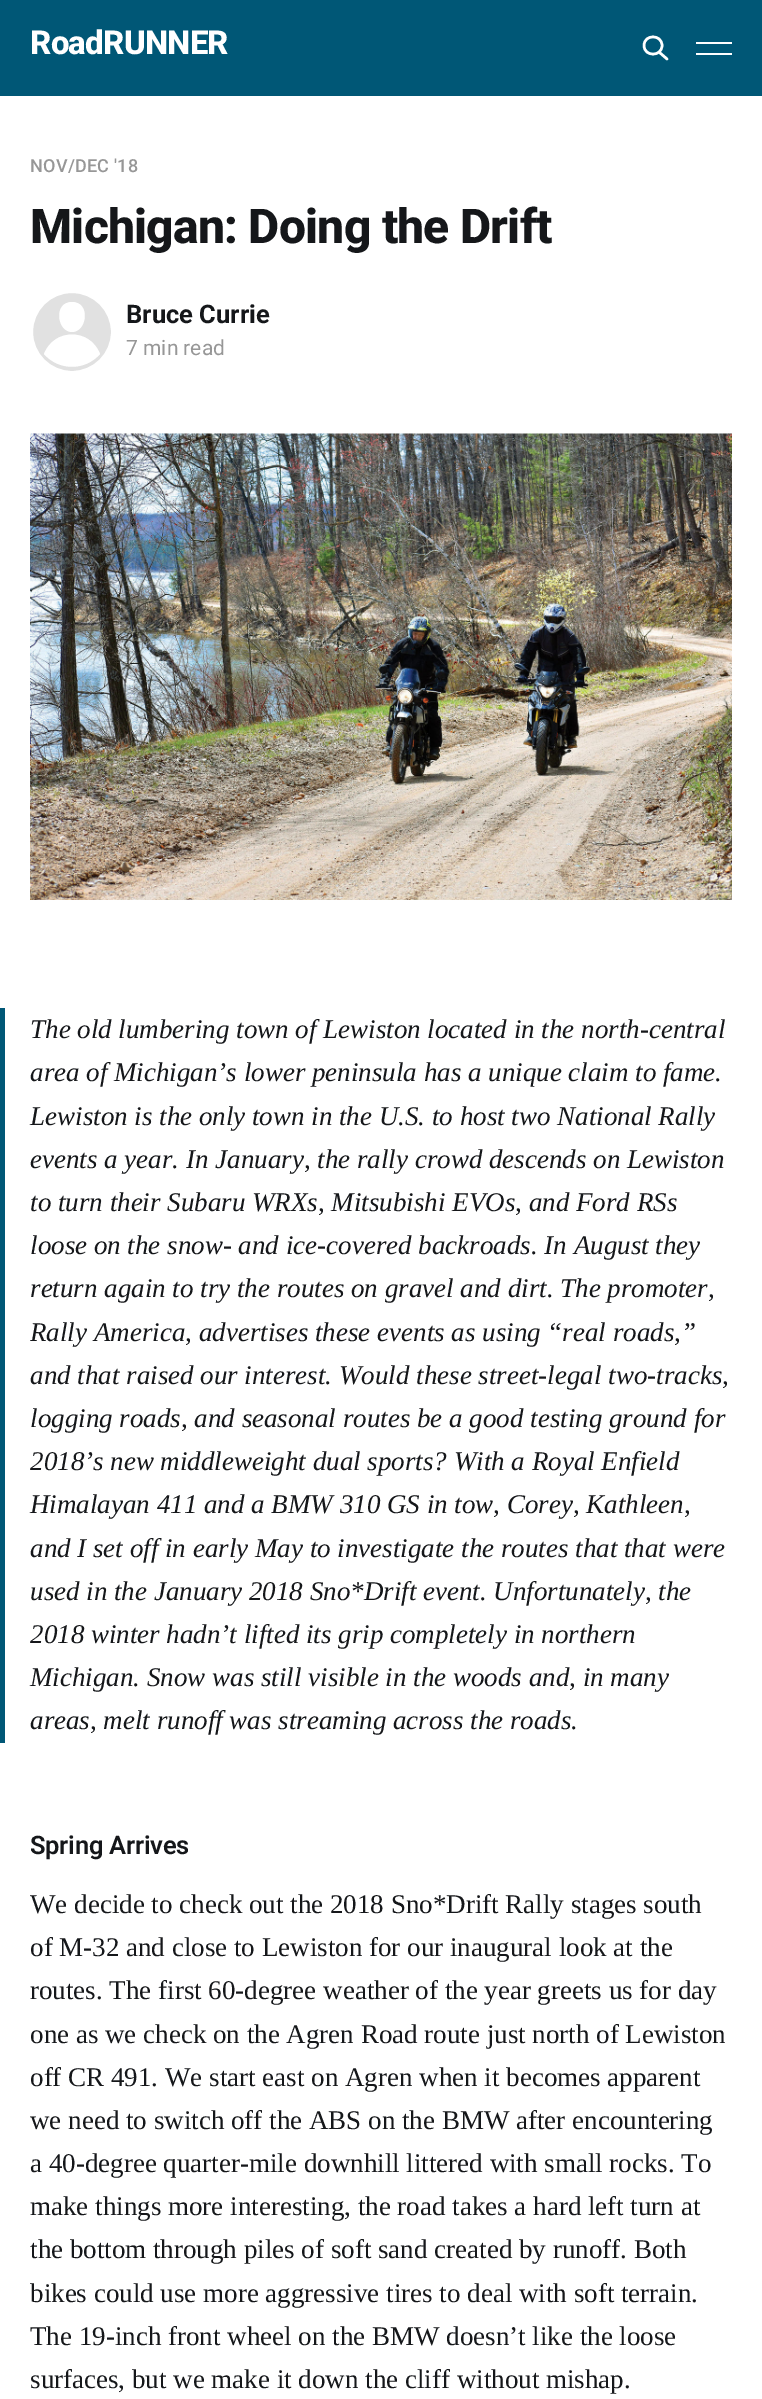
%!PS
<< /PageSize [762 2399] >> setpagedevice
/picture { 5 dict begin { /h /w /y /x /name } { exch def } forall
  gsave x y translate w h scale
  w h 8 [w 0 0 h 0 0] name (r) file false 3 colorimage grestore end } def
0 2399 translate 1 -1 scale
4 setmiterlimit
1 setgray
0 0 762 2399 rectfill
0 0.341 0.463 setrgbcolor
0 0 762 96 rectfill
/Roboto-ExtraBold [33 0 0 -33 0 0] selectfont
1 setgray
30 54 moveto -0.75 0 (RoadRUNNER) ashow
2.5 setlinewidth
1 setlinecap
1 setlinejoin
newpath 667 59 moveto 659 52 lineto 662 45.5 moveto 662 57 644 57 644 45.5 curveto 644 34 662 34 662 45.5 curveto closepath stroke
696 42 36 2 rectfill
696 53 36 2 rectfill
/Roboto-Medium [18 0 0 -18 0 0] selectfont
0.592 setgray
30 172 moveto 0.25 0 (NOV/DEC '18) ashow
/Roboto-ExtraBold [48 0 0 -48 0 0] selectfont
0.082 0.09 0.102 setrgbcolor
30 243 moveto -0.75 0 (Michigan: Doing the Drift) ashow
0.882 setgray
newpath 72 332 40.5 0 360 arc closepath gsave fill grestore
1 setgray
3 setlinewidth
0 setlinecap
0 setlinejoin
stroke
newpath 44 354 moveto 54 328 90 328 100 354 curveto 85 371 59 371 44 354 curveto closepath 72 332 moveto 87 332 91 302 72 302 curveto 53 302 57 332 72 332 curveto closepath eofill
/Roboto-Bold [25.5 0 0 -25.5 0 0] selectfont
0.082 0.09 0.102 setrgbcolor
126 323 moveto (Bruce Currie) show
/Roboto-Regular [21 0 0 -21 0 0] selectfont
0.592 setgray
126 355 moveto (7 min read) show
(img1.rgb) 30 433 702 467 picture
0 0.341 0.463 setrgbcolor
0 1008 5 735 rectfill
/LiberationSerif-Italic [27 0 0 -27 0 0] selectfont
0.082 0.09 0.102 setrgbcolor
30 1038 moveto (The old lumbering town of Lewiston located in the north-central) show
30 1081 moveto (area of Michigan’s lower peninsula has a unique claim to fame.) show
30 1125 moveto (Lewiston is the only town in the U.S. to host two National Rally) show
30 1168 moveto (events a year. In January, the rally crowd descends on Lewiston) show
30 1211 moveto (to turn their Subaru WRXs, Mitsubishi EVOs, and Ford RSs) show
30 1254 moveto (loose on the snow- and ice-covered backroads. In August they) show
30 1297 moveto (return again to try the routes on gravel and dirt. The promoter,) show
30 1341 moveto (Rally America, advertises these events as using “real roads,”) show
30 1384 moveto (and that raised our interest. Would these street-legal two-tracks,) show
30 1427 moveto (logging roads, and seasonal routes be a good testing ground for) show
30 1470 moveto (2018’s new middleweight dual sports? With a Royal Enfield) show
30 1513 moveto (Himalayan 411 and a BMW 310 GS in tow, Corey, Kathleen,) show
30 1557 moveto (and I set off in early May to investigate the routes that that were) show
30 1600 moveto (used in the January 2018 Sno*Drift event. Unfortunately, the) show
30 1643 moveto (2018 winter hadn’t lifted its grip completely in northern) show
30 1686 moveto (Michigan. Snow was still visible in the woods and, in many) show
30 1729 moveto (areas, melt runoff was streaming across the roads.) show
/Roboto-SemiBold [25.5 0 0 -25.5 0 0] selectfont
30 1854 moveto -0.25 0 (Spring Arrives) ashow
/LiberationSerif-Regular [27 0 0 -27 0 0] selectfont
30 1913 moveto (We decide to check out the 2018 Sno*Drift Rally stages south) show
30 1956 moveto (of M-32 and close to Lewiston for our inaugural look at the) show
30 1999 moveto (routes. The first 60-degree weather of the year greets us for day) show
30 2043 moveto (one as we check on the Agren Road route just north of Lewiston) show
30 2086 moveto (off CR 491. We start east on Agren when it becomes apparent) show
30 2129 moveto (we need to switch off the ABS on the BMW after encountering) show
30 2172 moveto (a 40-degree quarter-mile downhill littered with small rocks. To) show
30 2215 moveto (make things more interesting, the road takes a hard left turn at) show
30 2258 moveto (the bottom through piles of soft sand created by runoff. Both) show
30 2302 moveto (bikes could use more aggressive tires to deal with soft terrain.) show
30 2345 moveto (The 19-inch front wheel on the BMW doesn’t like the loose) show
30 2388 moveto (surfaces, but we make it down the cliff without mishap.) show
showpage
